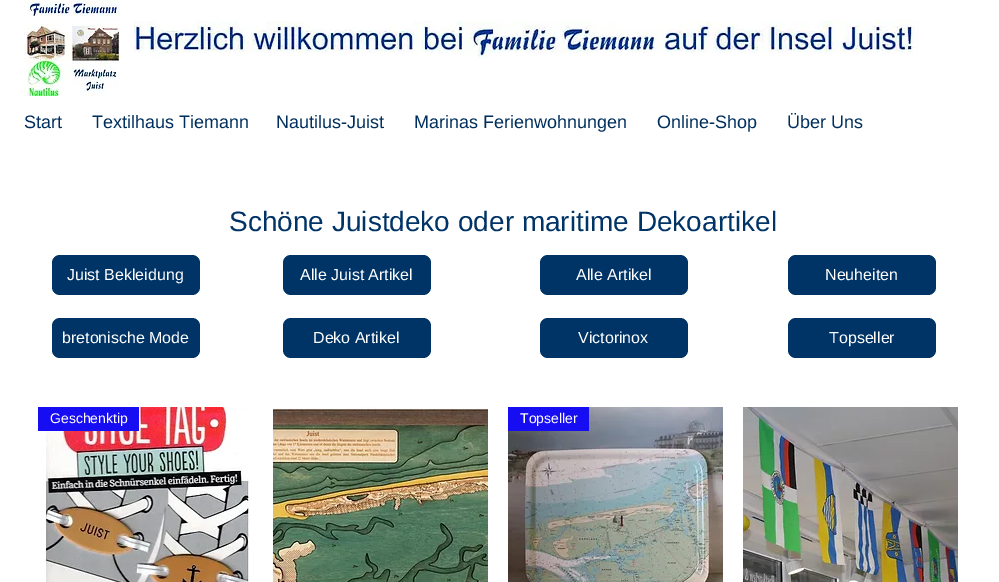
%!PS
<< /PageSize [999 582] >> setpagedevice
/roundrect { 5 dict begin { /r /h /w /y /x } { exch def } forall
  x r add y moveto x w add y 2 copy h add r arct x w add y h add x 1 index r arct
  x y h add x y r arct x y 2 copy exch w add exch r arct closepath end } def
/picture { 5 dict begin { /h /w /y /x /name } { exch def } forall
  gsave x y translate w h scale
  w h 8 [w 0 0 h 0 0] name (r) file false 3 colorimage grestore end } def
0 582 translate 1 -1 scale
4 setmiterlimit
1 setgray
0 0 999 582 rectfill
(img1.rgb) 24 0 97 96 picture
(img2.rgb) 134 21 784 38 picture
/LiberationSans-Regular [18 0 0 -18 0 0] selectfont
0 0.18 0.365 setrgbcolor
24 128 moveto (Start) show
92 128 moveto (Textilhaus Tiemann) show
276 128 moveto (Nautilus-Juist) show
414 128 moveto (Marinas Ferienwohnungen) show
657 128 moveto (Online-Shop) show
787 128 moveto (Über Uns) show
/LiberationSans-Regular [28 0 0 -28 0 0] selectfont
0 0.2 0.4 setrgbcolor
229 231 moveto (Schöne Juistdeko oder maritime Dekoartikel) show
52 255 148 40 8 roundrect fill
/LiberationSans-Regular [16 0 0 -16 0 0] selectfont
1 setgray
67 280 moveto (Juist Bekleidung) show
0 0.2 0.4 setrgbcolor
283 255 148 40 8 roundrect fill
1 setgray
300 280 moveto (Alle Juist Artikel) show
0 0.2 0.4 setrgbcolor
540 255 148 40 8 roundrect fill
1 setgray
576 280 moveto (Alle Artikel) show
0 0.2 0.4 setrgbcolor
788 255 148 40 8 roundrect fill
1 setgray
825 280 moveto (Neuheiten) show
0 0.2 0.4 setrgbcolor
52 318 148 40 8 roundrect fill
1 setgray
62 343 moveto (bretonische Mode) show
0 0.2 0.4 setrgbcolor
283 318 148 40 8 roundrect fill
1 setgray
313 343 moveto (Deko Artikel) show
0 0.2 0.4 setrgbcolor
540 318 148 40 8 roundrect fill
1 setgray
578 343 moveto (Victorinox) show
0 0.2 0.4 setrgbcolor
788 318 148 40 8 roundrect fill
1 setgray
829 343 moveto (Topseller) show
(img3.rgb) 46 407 204 175 picture
0.09 0.051 0.949 setrgbcolor
38 407 101 24 rectfill
/LiberationSans-Regular [14 0 0 -14 0 0] selectfont
1 setgray
50 423 moveto (Geschenktip) show
(img4.rgb) 273 407 215 175 picture
(img5.rgb) 508 407 215 175 picture
0.09 0.051 0.949 setrgbcolor
508 407 81 24 rectfill
1 setgray
520 423 moveto (Topseller) show
(img6.rgb) 743 407 215 175 picture
showpage
